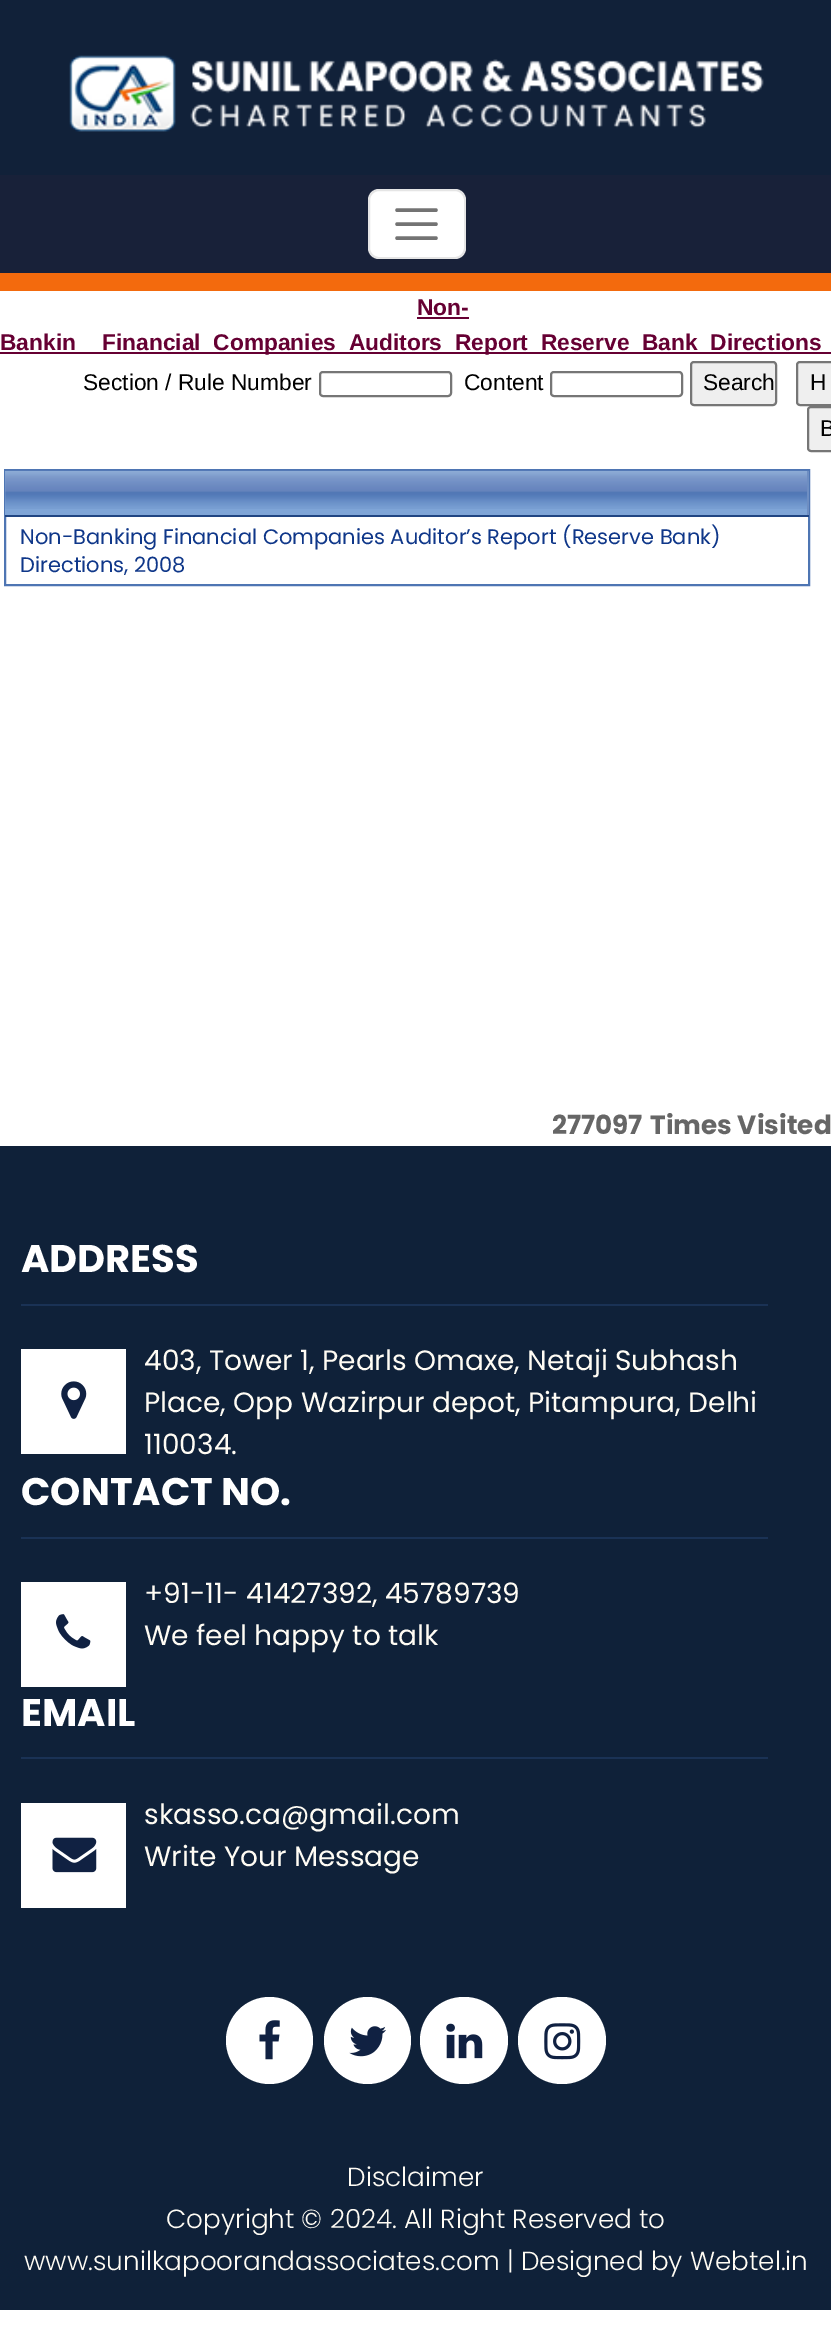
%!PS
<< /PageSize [831 2336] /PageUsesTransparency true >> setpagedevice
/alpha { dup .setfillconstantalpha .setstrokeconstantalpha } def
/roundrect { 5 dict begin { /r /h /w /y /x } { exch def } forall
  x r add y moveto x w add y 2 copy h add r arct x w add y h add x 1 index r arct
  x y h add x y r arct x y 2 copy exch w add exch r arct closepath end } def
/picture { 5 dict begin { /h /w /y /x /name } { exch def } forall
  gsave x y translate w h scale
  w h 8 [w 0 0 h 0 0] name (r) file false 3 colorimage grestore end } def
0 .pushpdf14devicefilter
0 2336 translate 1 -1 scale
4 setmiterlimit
1 setgray
0 0 831 2336 rectfill
0.953 0.416 0.051 setrgbcolor
0 273 831 18 rectfill
0.067 0.129 0.224 setrgbcolor
0 0 831 175 rectfill
(img1.rgb) 69 55 695 77 picture
0.094 0.129 0.224 setrgbcolor
0 175 831 98 rectfill
1 setgray
368 189 98 70 11 roundrect fill
0.1 alpha
0 setgray
2 setlinewidth
369 190 96 68 10 roundrect stroke
1 alpha
0.451 setgray
3.5 setlinewidth
1 setlinecap
newpath 397 210 moveto 436 210 lineto 397 224 moveto 436 224 lineto 397 238 moveto 436 238 lineto stroke
/LiberationSans-Bold [22.75 0 0 -22.75 0 0] selectfont
0.4 0 0.2 setrgbcolor
417 315 moveto (Non-) show
417 317 52 2 rectfill
0 350 moveto (Bankin) show
0 352 831 2 rectfill
102 350 moveto (Financial_Companies_Auditors_Report_Reserve_Bank_Directions) show
/LiberationSans-Regular [22.75 0 0 -22.75 0 0] selectfont
0 setgray
83 390 moveto (Section / Rule Number) show
0.463 setgray
2 setlinewidth
0 setlinecap
320 372 131 24 3 roundrect stroke
0 setgray
464 390 moveto (Content) show
0.463 setgray
551 372 131 24 3 roundrect stroke
0.937 setgray
691 362 85 43 3 roundrect gsave fill grestore
0.463 setgray
stroke
0 setgray
703 390 moveto (Search) show
0.937 setgray
newpath 800 361 moveto 831 361 lineto 831 406 lineto 800 406 lineto 798 406 796 404 796 402 curveto 796 365 lineto 796 363 798 361 800 361 curveto closepath fill
0.463 setgray
797 362 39 43 3 roundrect stroke
0 setgray
810 390 moveto (H) show
0.937 setgray
newpath 811 406 moveto 831 406 lineto 831 452 lineto 811 452 lineto 809 452 807 450 807 448 curveto 807 410 lineto 807 408 809 406 811 406 curveto closepath fill
0.463 setgray
808 407 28 44 3 roundrect stroke
0 setgray
820 436 moveto (B) show
0.306 0.459 0.702 setrgbcolor
5 470 804 115 rectstroke
0.498 0.647 0.843 setrgbcolor
5 471 802 44 rectfill
(img2.rgb) 5 470 804 39 picture
0.431 0.557 0.761 setrgbcolor
807 471 2 45 rectfill
0.125 0.271 0.51 setrgbcolor
5 515 804 2 rectfill
/Poppins-Regular [21 0 0 -21 0 0] selectfont
0.059 0.216 0.537 setrgbcolor
20 544 moveto (Non-Banking Financial Companies Auditor’s Report \(Reserve Bank\)) show
20 572 moveto (Directions, 2008) show
/Poppins-Bold [26.25 0 0 -26.25 0 0] selectfont
0.4 setgray
552 1134 moveto (277097) show
650 1134 moveto (Times Visited) show
0.059 0.129 0.224 setrgbcolor
0 1146 831 1164 rectfill
0.102 0.196 0.333 setrgbcolor
21 1304 747 2 rectfill
/Poppins-Bold [38.5 0 0 -38.5 0 0] selectfont
1 setgray
21 1272 moveto (ADDRESS) show
21 1349 105 105 rectfill
(img3.rgb) 61 1381 26 38 picture
/Poppins-Regular [28 0 0 -28 0 0] selectfont
1 0.988 0.957 setrgbcolor
144 1370 moveto (403, Tower 1, Pearls Omaxe, Netaji Subhash) show
144 1412 moveto (Place, Opp Wazirpur depot, Pitampura, Delhi) show
144 1454 moveto (110034.) show
0.102 0.196 0.333 setrgbcolor
21 1537 747 2 rectfill
/Poppins-Bold [38.5 0 0 -38.5 0 0] selectfont
1 setgray
21 1505 moveto (CONTACT NO.) show
21 1582 105 105 rectfill
(img4.rgb) 56 1614 35 35 picture
/Poppins-Regular [28 0 0 -28 0 0] selectfont
1 0.988 0.957 setrgbcolor
144 1603 moveto (+91-11- 41427392, 45789739) show
144 1645 moveto (We feel happy to talk) show
0.102 0.196 0.333 setrgbcolor
21 1757 747 2 rectfill
/Poppins-Bold [38.5 0 0 -38.5 0 0] selectfont
1 setgray
21 1726 moveto (EMAIL) show
21 1803 105 105 rectfill
(img5.rgb) 52 1837 45 36 picture
/Poppins-Regular [28 0 0 -28 0 0] selectfont
1 0.988 0.957 setrgbcolor
144 1824 moveto (skasso.ca@gmail.com) show
144 1866 moveto (Write Your Message) show
1 setgray
newpath 269.5 2040.5 43.5 0 360 arc closepath fill
(img6.rgb) 259 2020 21 40 picture
newpath 367.5 2040.5 43.5 0 360 arc closepath fill
(img7.rgb) 349 2026 37 31 picture
420 1997 88 87 43.5 roundrect fill
(img8.rgb) 446 2023 37 36 picture
518 1997 88 87 43.5 roundrect fill
(img9.rgb) 544 2023 37 37 picture
/Poppins-Light [26.25 0 0 -26.25 0 0] selectfont
1 0.988 0.957 setrgbcolor
347 2186 moveto (Disclaimer) show
166 2228 moveto (Copyright © 2024. All Right Reserved to) show
24 2270 moveto (www.sunilkapoorandassociates.com | Designed by Webtel.in) show
.poppdf14devicefilter showpage
